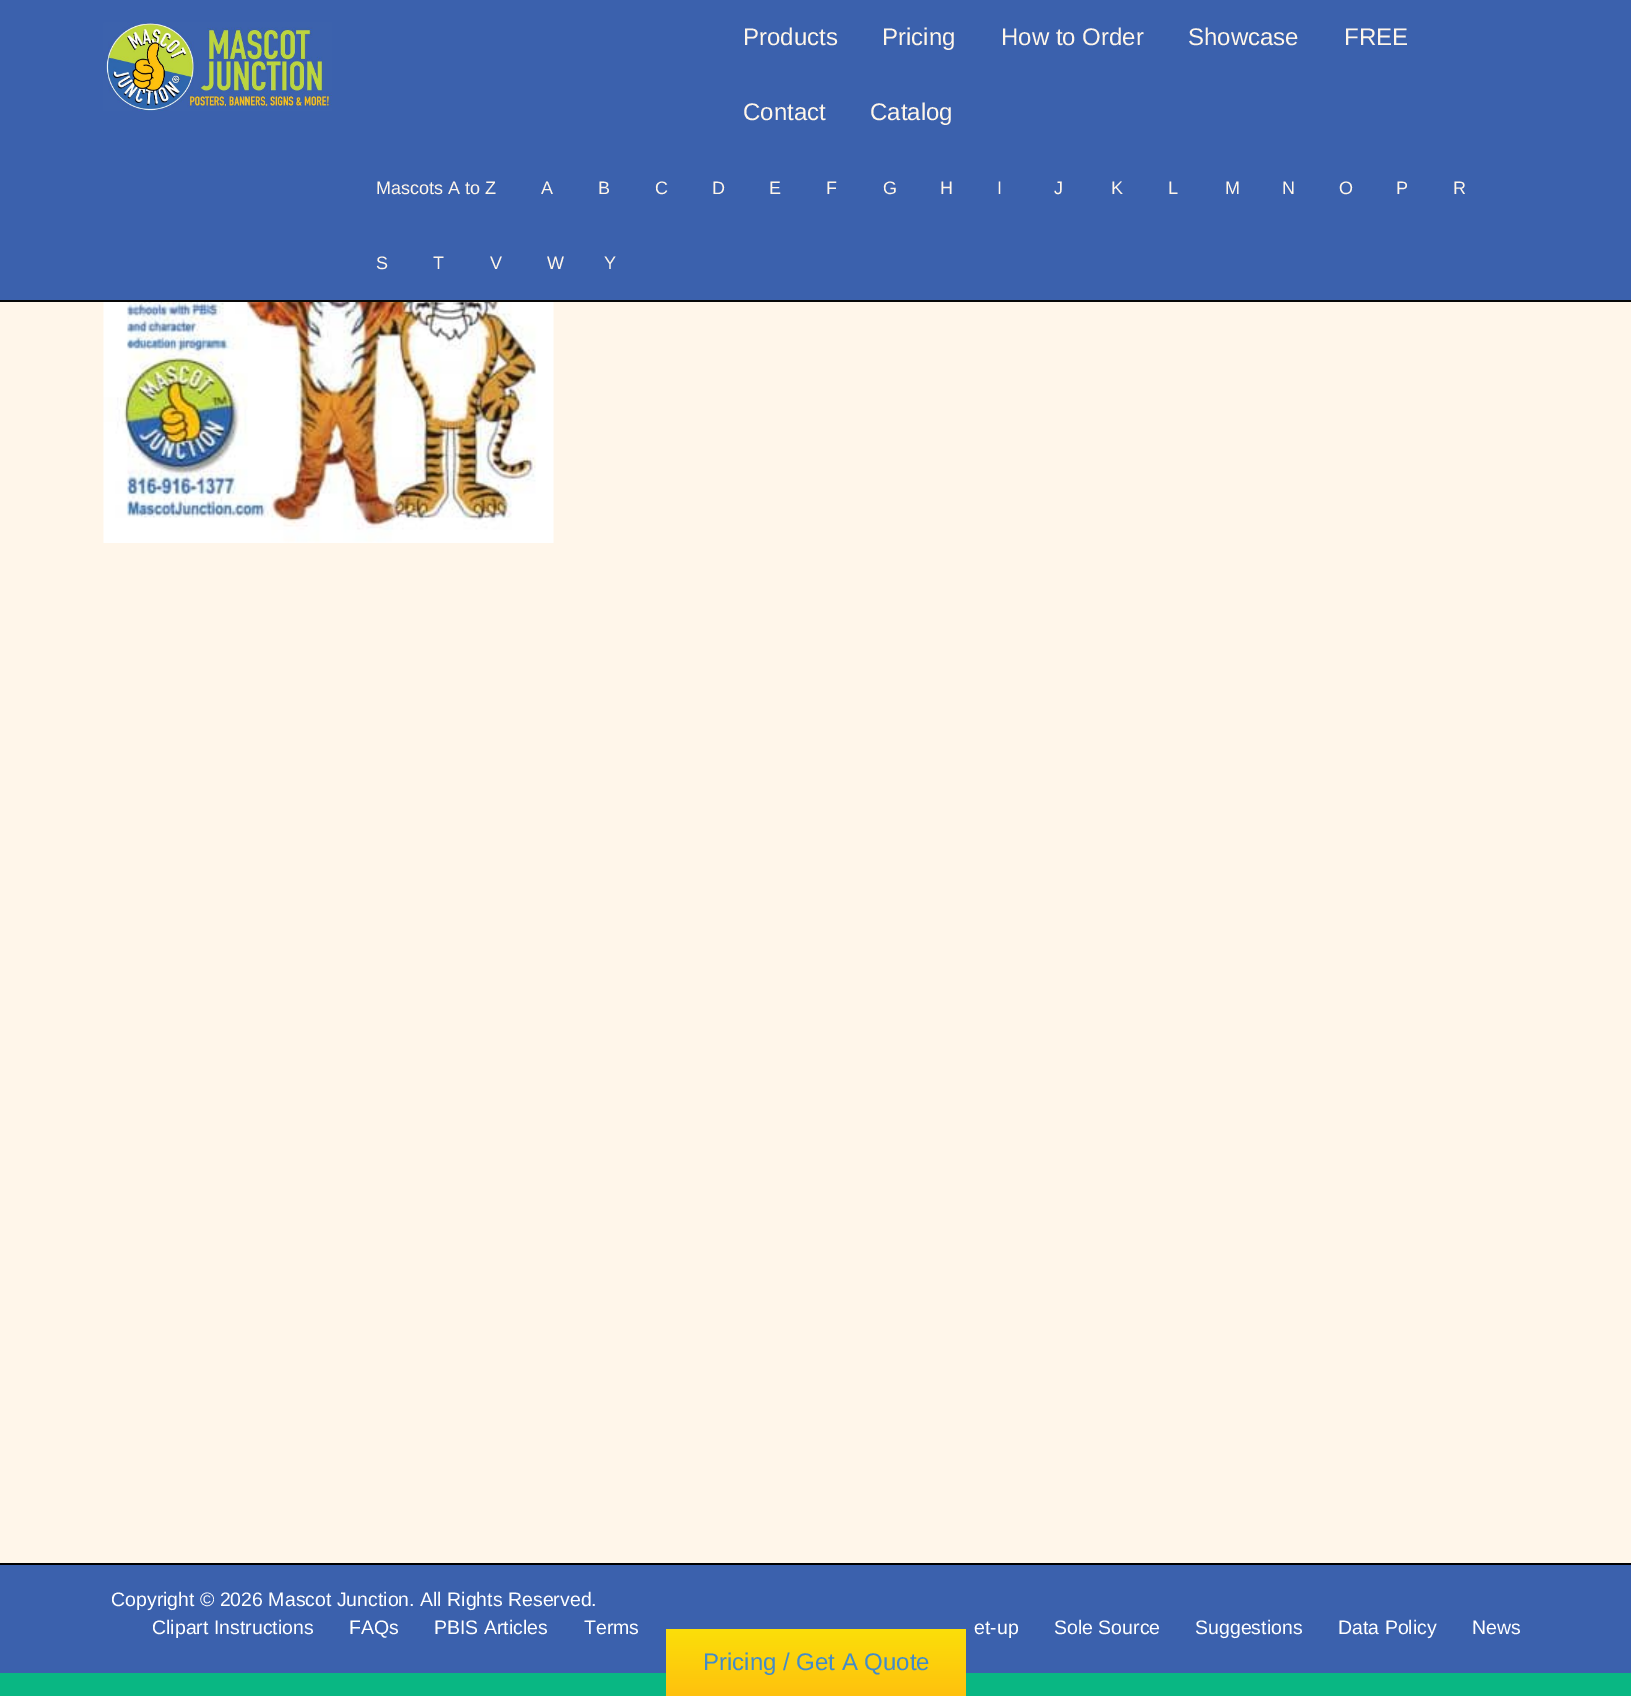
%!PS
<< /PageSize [1631 1696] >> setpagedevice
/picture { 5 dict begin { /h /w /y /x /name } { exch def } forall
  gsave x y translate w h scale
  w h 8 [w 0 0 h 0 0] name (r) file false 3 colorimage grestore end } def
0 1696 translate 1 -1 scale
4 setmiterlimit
0.035 0.718 0.514 setrgbcolor
0 0 1631 1696 rectfill
1 0.965 0.918 setrgbcolor
0 302 1631 1261 rectfill
0.231 0.38 0.678 setrgbcolor
0 0 1631 300 rectfill
0.031 setgray
0 300 1631 2 rectfill
(img1.rgb) 103 22 229 89 picture
/LiberationSans-Regular [24 0 0 -24 0 0] selectfont
1 0.965 0.918 setrgbcolor
743 45 moveto (Products) show
882 45 moveto (Pricing) show
1001 45 moveto (How to Order) show
1188 45 moveto (Showcase) show
1344 45 moveto (FREE) show
743 120 moveto (Contact) show
870 120 moveto (Catalog) show
/LiberationSans-Regular [18 0 0 -18 0 0] selectfont
376 194 moveto (Mascots A to Z) show
541 194 moveto (A) show
598 194 moveto (B) show
655 194 moveto (C) show
712 194 moveto (D) show
769 194 moveto (E) show
826 194 moveto (F) show
883 194 moveto (G) show
940 194 moveto (H) show
997 194 moveto (I) show
1054 194 moveto (J) show
1111 194 moveto (K) show
1168 194 moveto (L) show
1225 194 moveto (M) show
1282 194 moveto (N) show
1339 194 moveto (O) show
1396 194 moveto (P) show
1453 194 moveto (R) show
376 269 moveto (S) show
433 269 moveto (T) show
490 269 moveto (V) show
547 269 moveto (W) show
604 269 moveto (Y) show
(img2.rgb) 103 302 451 241 picture
0.231 0.38 0.678 setrgbcolor
0 1565 1631 108 rectfill
0 setgray
0 1563 1631 2 rectfill
/LiberationSans-Regular [19.5 0 0 -19.5 0 0] selectfont
1 setgray
111 1606 moveto (Copyright © 2026 Mascot Junction. All Rights Reserved.) show
152 1634 moveto (Clipart Instructions) show
349 1634 moveto (FAQs) show
434 1634 moveto (PBIS Articles) show
584 1634 moveto (Terms) show
974 1634 moveto (et-up) show
1054 1634 moveto (Sole Source) show
1195 1634 moveto (Suggestions) show
1338 1634 moveto (Data Policy) show
1472 1634 moveto (News) show
gsave newpath 666 1629 moveto 966 1629 lineto 966 1696 lineto 666 1696 lineto closepath clip newpath
<< /ShadingType 2 /ColorSpace /DeviceRGB /Coords [816 1629 816 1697] /Extend [true true] /Function << /FunctionType 2 /Domain [0 1] /C0 [0.984 0.875 0.035] /C1 [1 0.757 0.055] /N 1 >> >> shfill grestore
/LiberationSans-Regular [24 0 0 -24 0 0] selectfont
0.259 0.545 0.792 setrgbcolor
703 1670 moveto (Pricing / Get A Quote) show
showpage
